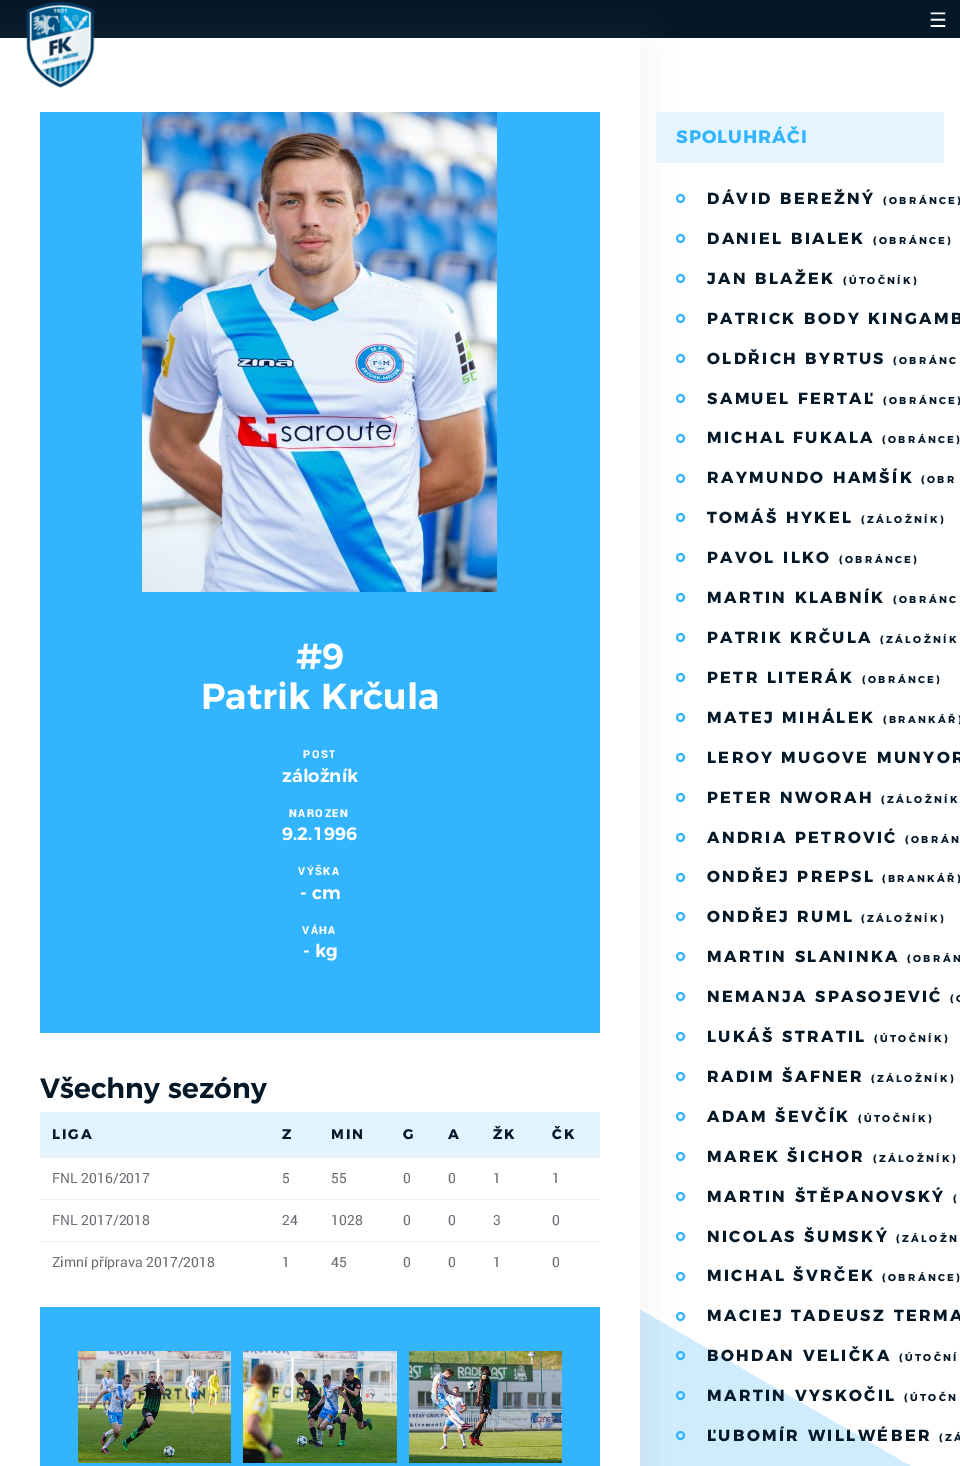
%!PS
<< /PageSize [960 1466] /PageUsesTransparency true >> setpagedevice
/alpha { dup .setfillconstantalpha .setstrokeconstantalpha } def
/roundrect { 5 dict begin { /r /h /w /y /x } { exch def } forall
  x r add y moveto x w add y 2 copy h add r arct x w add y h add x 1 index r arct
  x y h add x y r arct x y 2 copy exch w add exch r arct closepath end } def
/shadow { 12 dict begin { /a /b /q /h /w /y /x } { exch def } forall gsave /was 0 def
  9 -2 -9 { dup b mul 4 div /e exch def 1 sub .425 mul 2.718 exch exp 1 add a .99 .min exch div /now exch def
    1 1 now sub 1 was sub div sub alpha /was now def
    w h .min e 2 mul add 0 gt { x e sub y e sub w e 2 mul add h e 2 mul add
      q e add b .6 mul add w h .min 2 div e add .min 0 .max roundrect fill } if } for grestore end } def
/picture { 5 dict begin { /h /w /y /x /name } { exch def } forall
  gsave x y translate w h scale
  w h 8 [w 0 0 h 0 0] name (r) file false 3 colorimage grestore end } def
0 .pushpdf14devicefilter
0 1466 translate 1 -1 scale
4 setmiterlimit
1 setgray
0 0 960 1466 rectfill
(img1.rgb) 640 1309 271 157 picture
0.02 0.094 0.157 setrgbcolor
0 0 960 38 rectfill
0.576 setgray
-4 47 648 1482 0 21 0.15 shadow
1 setgray
0 38 640 1428 rectfill
(img2.rgb) 26 1 69 87 picture
/DejaVuSans-Regular [20 0 0 -20 0 0] selectfont
929 27 moveto (☰) show
0.196 0.706 1 setrgbcolor
40 112 560 921 rectfill
(img3.rgb) 142 112 355 480 picture
/Montserrat-SemiBold [36 0 0 -36 0 0] selectfont
1 setgray
296 669 moveto (#9) show
201 709 moveto (Patrik Krčula) show
/Roboto-Black [11 0 0 -11 0 0] selectfont
303 758 moveto 1.5 0 (POST) ashow
/Montserrat-SemiBold [18 0 0 -18 0 0] selectfont
282 782 moveto (záložník) show
/Roboto-Black [11 0 0 -11 0 0] selectfont
289 817 moveto 1.5 0 (NAROZEN) ashow
/Montserrat-SemiBold [18 0 0 -18 0 0] selectfont
282 840 moveto (9.2.1996) show
/Roboto-Black [11 0 0 -11 0 0] selectfont
298 875 moveto 1.5 0 (VÝŠKA) ashow
/Montserrat-SemiBold [18 0 0 -18 0 0] selectfont
300 899 moveto (- cm) show
/Roboto-Black [11 0 0 -11 0 0] selectfont
302 934 moveto 1.5 0 (VÁHA) ashow
/Montserrat-SemiBold [18 0 0 -18 0 0] selectfont
303 957 moveto (- kg) show
/Montserrat-SemiBold [28 0 0 -28 0 0] selectfont
0.02 0.094 0.157 setrgbcolor
40 1098 moveto (Všechny sezóny) show
0.886 0.957 1 setrgbcolor
40 1112 560 45 rectfill
/Montserrat-Bold [14 0 0 -14 0 0] selectfont
0.02 0.094 0.157 setrgbcolor
52 1139 moveto 2 0 (LIGA) ashow
282 1139 moveto 2 0 (Z) ashow
331 1139 moveto 2 0 (MIN) ashow
403 1139 moveto 2 0 (G) ashow
448 1139 moveto 2 0 (A) ashow
493 1139 moveto 2 0 (ŽK) ashow
552 1139 moveto 2 0 (ČK) ashow
/Roboto-Regular [14 0 0 -14 0 0] selectfont
0.4 0.424 0.443 setrgbcolor
52 1183 moveto (FNL 2016/2017) show
282 1183 moveto (5) show
331 1183 moveto (55) show
403 1183 moveto (0) show
448 1183 moveto (0) show
493 1183 moveto (1) show
0.925 0.933 0.937 setrgbcolor
40 1157 560 1 rectfill
0.4 0.424 0.443 setrgbcolor
552 1183 moveto (1) show
52 1225 moveto (FNL 2017/2018) show
282 1225 moveto (24) show
331 1225 moveto (1028) show
403 1225 moveto (0) show
448 1225 moveto (0) show
493 1225 moveto (3) show
0.925 0.933 0.937 setrgbcolor
40 1199 560 1 rectfill
0.4 0.424 0.443 setrgbcolor
552 1225 moveto (0) show
52 1267 moveto (Zimní příprava 2017/2018) show
282 1267 moveto (1) show
331 1267 moveto (45) show
403 1267 moveto (0) show
448 1267 moveto (0) show
493 1267 moveto (1) show
0.925 0.933 0.937 setrgbcolor
40 1241 560 1 rectfill
0.4 0.424 0.443 setrgbcolor
552 1267 moveto (0) show
0.196 0.706 1 setrgbcolor
40 1307 560 159 rectfill
(img4.rgb) 78 1351 153 112 picture
(img5.rgb) 243 1351 154 112 picture
(img6.rgb) 409 1351 153 112 picture
0.894 0.961 1 setrgbcolor
656 112 288 51 rectfill
/Montserrat-Bold [18 0 0 -18 0 0] selectfont
0.196 0.706 1 setrgbcolor
676 143 moveto 1 0 (SPOLUHRÁČI) ashow
2 setlinewidth
newpath 680.5 198.5 3.5 0 360 arc closepath stroke
/Montserrat-Bold [16 0 0 -16 0 0] selectfont
0.02 0.094 0.157 setrgbcolor
707 204 moveto 2.4 0 (DÁVID BEREŽNÝ) ashow
/Montserrat-Bold [10 0 0 -10 0 0] selectfont
883 204 moveto 2.4 0 (\(OBRÁNCE\)) ashow
0.196 0.706 1 setrgbcolor
newpath 680.5 238.5 3.5 0 360 arc closepath stroke
/Montserrat-Bold [16 0 0 -16 0 0] selectfont
0.02 0.094 0.157 setrgbcolor
707 244 moveto 2.4 0 (DANIEL BIALEK) ashow
/Montserrat-Bold [10 0 0 -10 0 0] selectfont
873 244 moveto 2.4 0 (\(OBRÁNCE\)) ashow
0.196 0.706 1 setrgbcolor
newpath 680.5 278.5 3.5 0 360 arc closepath stroke
/Montserrat-Bold [16 0 0 -16 0 0] selectfont
0.02 0.094 0.157 setrgbcolor
707 284 moveto 2.4 0 (JAN BLAŽEK) ashow
/Montserrat-Bold [10 0 0 -10 0 0] selectfont
843 284 moveto 2.4 0 (\(ÚTOČNÍK\)) ashow
0.196 0.706 1 setrgbcolor
newpath 680.5 318.5 3.5 0 360 arc closepath stroke
/Montserrat-Bold [16 0 0 -16 0 0] selectfont
0.02 0.094 0.157 setrgbcolor
707 324 moveto 2.4 0 (PATRICK BODY KINGAMB) ashow
0.196 0.706 1 setrgbcolor
newpath 680.5 358.5 3.5 0 360 arc closepath stroke
0.02 0.094 0.157 setrgbcolor
707 364 moveto 2.4 0 (OLDŘICH BYRTUS) ashow
/Montserrat-Bold [10 0 0 -10 0 0] selectfont
893 364 moveto 2.4 0 (\(OBRÁNC) ashow
0.196 0.706 1 setrgbcolor
newpath 680.5 398.5 3.5 0 360 arc closepath stroke
/Montserrat-Bold [16 0 0 -16 0 0] selectfont
0.02 0.094 0.157 setrgbcolor
707 404 moveto 2.4 0 (SAMUEL FERTAĽ) ashow
/Montserrat-Bold [10 0 0 -10 0 0] selectfont
883 404 moveto 2.4 0 (\(OBRÁNCE\)) ashow
0.196 0.706 1 setrgbcolor
newpath 680.5 438.5 3.5 0 360 arc closepath stroke
/Montserrat-Bold [16 0 0 -16 0 0] selectfont
0.02 0.094 0.157 setrgbcolor
707 443 moveto 2.4 0 (MICHAL FUKALA) ashow
/Montserrat-Bold [10 0 0 -10 0 0] selectfont
882 443 moveto 2.4 0 (\(OBRÁNCE\)) ashow
0.196 0.706 1 setrgbcolor
newpath 680.5 478.5 3.5 0 360 arc closepath stroke
/Montserrat-Bold [16 0 0 -16 0 0] selectfont
0.02 0.094 0.157 setrgbcolor
707 483 moveto 2.4 0 (RAYMUNDO HAMŠÍK) ashow
/Montserrat-Bold [10 0 0 -10 0 0] selectfont
921 483 moveto 2.4 0 (\(OBR) ashow
0.196 0.706 1 setrgbcolor
newpath 680.5 517.5 3.5 0 360 arc closepath stroke
/Montserrat-Bold [16 0 0 -16 0 0] selectfont
0.02 0.094 0.157 setrgbcolor
707 523 moveto 2.4 0 (TOMÁŠ HYKEL) ashow
/Montserrat-Bold [10 0 0 -10 0 0] selectfont
861 523 moveto 2.4 0 (\(ZÁLOŽNÍK\)) ashow
0.196 0.706 1 setrgbcolor
newpath 680.5 557.5 3.5 0 360 arc closepath stroke
/Montserrat-Bold [16 0 0 -16 0 0] selectfont
0.02 0.094 0.157 setrgbcolor
707 563 moveto 2.4 0 (PAVOL ILKO) ashow
/Montserrat-Bold [10 0 0 -10 0 0] selectfont
839 563 moveto 2.4 0 (\(OBRÁNCE\)) ashow
0.196 0.706 1 setrgbcolor
newpath 680.5 597.5 3.5 0 360 arc closepath stroke
/Montserrat-Bold [16 0 0 -16 0 0] selectfont
0.02 0.094 0.157 setrgbcolor
707 603 moveto 2.4 0 (MARTIN KLABNÍK) ashow
/Montserrat-Bold [10 0 0 -10 0 0] selectfont
893 603 moveto 2.4 0 (\(OBRÁNC) ashow
0.196 0.706 1 setrgbcolor
newpath 680.5 637.5 3.5 0 360 arc closepath stroke
/Montserrat-Bold [16 0 0 -16 0 0] selectfont
0.02 0.094 0.157 setrgbcolor
707 643 moveto 2.4 0 (PATRIK KRČULA) ashow
/Montserrat-Bold [10 0 0 -10 0 0] selectfont
880 643 moveto 2.4 0 (\(ZÁLOŽNÍK) ashow
0.196 0.706 1 setrgbcolor
newpath 680.5 677.5 3.5 0 360 arc closepath stroke
/Montserrat-Bold [16 0 0 -16 0 0] selectfont
0.02 0.094 0.157 setrgbcolor
707 683 moveto 2.4 0 (PETR LITERÁK) ashow
/Montserrat-Bold [10 0 0 -10 0 0] selectfont
862 683 moveto 2.4 0 (\(OBRÁNCE\)) ashow
0.196 0.706 1 setrgbcolor
newpath 680.5 717.5 3.5 0 360 arc closepath stroke
/Montserrat-Bold [16 0 0 -16 0 0] selectfont
0.02 0.094 0.157 setrgbcolor
707 723 moveto 2.4 0 (MATEJ MIHÁLEK) ashow
/Montserrat-Bold [10 0 0 -10 0 0] selectfont
883 723 moveto 2.4 0 (\(BRANKÁŘ\)) ashow
0.196 0.706 1 setrgbcolor
newpath 680.5 757.5 3.5 0 360 arc closepath stroke
/Montserrat-Bold [16 0 0 -16 0 0] selectfont
0.02 0.094 0.157 setrgbcolor
707 763 moveto 2.4 0 (LEROY MUGOVE MUNYOR) ashow
0.196 0.706 1 setrgbcolor
newpath 680.5 797.5 3.5 0 360 arc closepath stroke
0.02 0.094 0.157 setrgbcolor
707 803 moveto 2.4 0 (PETER NWORAH) ashow
/Montserrat-Bold [10 0 0 -10 0 0] selectfont
881 803 moveto 2.4 0 (\(ZÁLOŽNÍK) ashow
0.196 0.706 1 setrgbcolor
newpath 680.5 837.5 3.5 0 360 arc closepath stroke
/Montserrat-Bold [16 0 0 -16 0 0] selectfont
0.02 0.094 0.157 setrgbcolor
707 843 moveto 2.4 0 (ANDRIA PETROVIĆ) ashow
/Montserrat-Bold [10 0 0 -10 0 0] selectfont
905 843 moveto 2.4 0 (\(OBRÁN) ashow
0.196 0.706 1 setrgbcolor
newpath 680.5 877.5 3.5 0 360 arc closepath stroke
/Montserrat-Bold [16 0 0 -16 0 0] selectfont
0.02 0.094 0.157 setrgbcolor
707 882 moveto 2.4 0 (ONDŘEJ PREPSL) ashow
/Montserrat-Bold [10 0 0 -10 0 0] selectfont
882 882 moveto 2.4 0 (\(BRANKÁŘ\)) ashow
0.196 0.706 1 setrgbcolor
newpath 680.5 916.5 3.5 0 360 arc closepath stroke
/Montserrat-Bold [16 0 0 -16 0 0] selectfont
0.02 0.094 0.157 setrgbcolor
707 922 moveto 2.4 0 (ONDŘEJ RUML) ashow
/Montserrat-Bold [10 0 0 -10 0 0] selectfont
861 922 moveto 2.4 0 (\(ZÁLOŽNÍK\)) ashow
0.196 0.706 1 setrgbcolor
newpath 680.5 956.5 3.5 0 360 arc closepath stroke
/Montserrat-Bold [16 0 0 -16 0 0] selectfont
0.02 0.094 0.157 setrgbcolor
707 962 moveto 2.4 0 (MARTIN SLANINKA) ashow
/Montserrat-Bold [10 0 0 -10 0 0] selectfont
907 962 moveto 2.4 0 (\(OBRÁN) ashow
0.196 0.706 1 setrgbcolor
newpath 680.5 996.5 3.5 0 360 arc closepath stroke
/Montserrat-Bold [16 0 0 -16 0 0] selectfont
0.02 0.094 0.157 setrgbcolor
707 1002 moveto 2.4 0 (NEMANJA SPASOJEVIĆ) ashow
/Montserrat-Bold [10 0 0 -10 0 0] selectfont
950 1002 moveto 2.4 0 (\(O) ashow
0.196 0.706 1 setrgbcolor
newpath 680.5 1036.5 3.5 0 360 arc closepath stroke
/Montserrat-Bold [16 0 0 -16 0 0] selectfont
0.02 0.094 0.157 setrgbcolor
707 1042 moveto 2.4 0 (LUKÁŠ STRATIL) ashow
/Montserrat-Bold [10 0 0 -10 0 0] selectfont
874 1042 moveto 2.4 0 (\(ÚTOČNÍK\)) ashow
0.196 0.706 1 setrgbcolor
newpath 680.5 1076.5 3.5 0 360 arc closepath stroke
/Montserrat-Bold [16 0 0 -16 0 0] selectfont
0.02 0.094 0.157 setrgbcolor
707 1082 moveto 2.4 0 (RADIM ŠAFNER) ashow
/Montserrat-Bold [10 0 0 -10 0 0] selectfont
871 1082 moveto 2.4 0 (\(ZÁLOŽNÍK\)) ashow
0.196 0.706 1 setrgbcolor
newpath 680.5 1116.5 3.5 0 360 arc closepath stroke
/Montserrat-Bold [16 0 0 -16 0 0] selectfont
0.02 0.094 0.157 setrgbcolor
707 1122 moveto 2.4 0 (ADAM ŠEVČÍK) ashow
/Montserrat-Bold [10 0 0 -10 0 0] selectfont
858 1122 moveto 2.4 0 (\(ÚTOČNÍK\)) ashow
0.196 0.706 1 setrgbcolor
newpath 680.5 1156.5 3.5 0 360 arc closepath stroke
/Montserrat-Bold [16 0 0 -16 0 0] selectfont
0.02 0.094 0.157 setrgbcolor
707 1162 moveto 2.4 0 (MAREK ŠICHOR) ashow
/Montserrat-Bold [10 0 0 -10 0 0] selectfont
873 1162 moveto 2.4 0 (\(ZÁLOŽNÍK\)) ashow
0.196 0.706 1 setrgbcolor
newpath 680.5 1196.5 3.5 0 360 arc closepath stroke
/Montserrat-Bold [16 0 0 -16 0 0] selectfont
0.02 0.094 0.157 setrgbcolor
707 1202 moveto 2.4 0 (MARTIN ŠTĚPANOVSKÝ) ashow
/Montserrat-Bold [10 0 0 -10 0 0] selectfont
953 1202 moveto 2.4 0 (\() ashow
0.196 0.706 1 setrgbcolor
newpath 680.5 1236.5 3.5 0 360 arc closepath stroke
/Montserrat-Bold [16 0 0 -16 0 0] selectfont
0.02 0.094 0.157 setrgbcolor
707 1242 moveto 2.4 0 (NICOLAS ŠUMSKÝ) ashow
/Montserrat-Bold [10 0 0 -10 0 0] selectfont
896 1242 moveto 2.4 0 (\(ZÁLOŽN) ashow
0.196 0.706 1 setrgbcolor
newpath 680.5 1276.5 3.5 0 360 arc closepath stroke
/Montserrat-Bold [16 0 0 -16 0 0] selectfont
0.02 0.094 0.157 setrgbcolor
707 1281 moveto 2.4 0 (MICHAL ŠVRČEK) ashow
/Montserrat-Bold [10 0 0 -10 0 0] selectfont
882 1281 moveto 2.4 0 (\(OBRÁNCE\)) ashow
0.196 0.706 1 setrgbcolor
newpath 680.5 1316.5 3.5 0 360 arc closepath stroke
/Montserrat-Bold [16 0 0 -16 0 0] selectfont
0.02 0.094 0.157 setrgbcolor
707 1321 moveto 2.4 0 (MACIEJ TADEUSZ TERMA) ashow
0.196 0.706 1 setrgbcolor
newpath 680.5 1355.5 3.5 0 360 arc closepath stroke
0.02 0.094 0.157 setrgbcolor
707 1361 moveto 2.4 0 (BOHDAN VELIČKA) ashow
/Montserrat-Bold [10 0 0 -10 0 0] selectfont
899 1361 moveto 2.4 0 (\(ÚTOČNÍ) ashow
0.196 0.706 1 setrgbcolor
newpath 680.5 1395.5 3.5 0 360 arc closepath stroke
/Montserrat-Bold [16 0 0 -16 0 0] selectfont
0.02 0.094 0.157 setrgbcolor
707 1401 moveto 2.4 0 (MARTIN VYSKOČIL) ashow
/Montserrat-Bold [10 0 0 -10 0 0] selectfont
904 1401 moveto 2.4 0 (\(ÚTOČN) ashow
0.196 0.706 1 setrgbcolor
newpath 680.5 1435.5 3.5 0 360 arc closepath stroke
/Montserrat-Bold [16 0 0 -16 0 0] selectfont
0.02 0.094 0.157 setrgbcolor
707 1441 moveto 2.4 0 (ĽUBOMÍR WILLWÉBER) ashow
/Montserrat-Bold [10 0 0 -10 0 0] selectfont
939 1441 moveto 2.4 0 (\(ZÁ) ashow
.poppdf14devicefilter showpage
